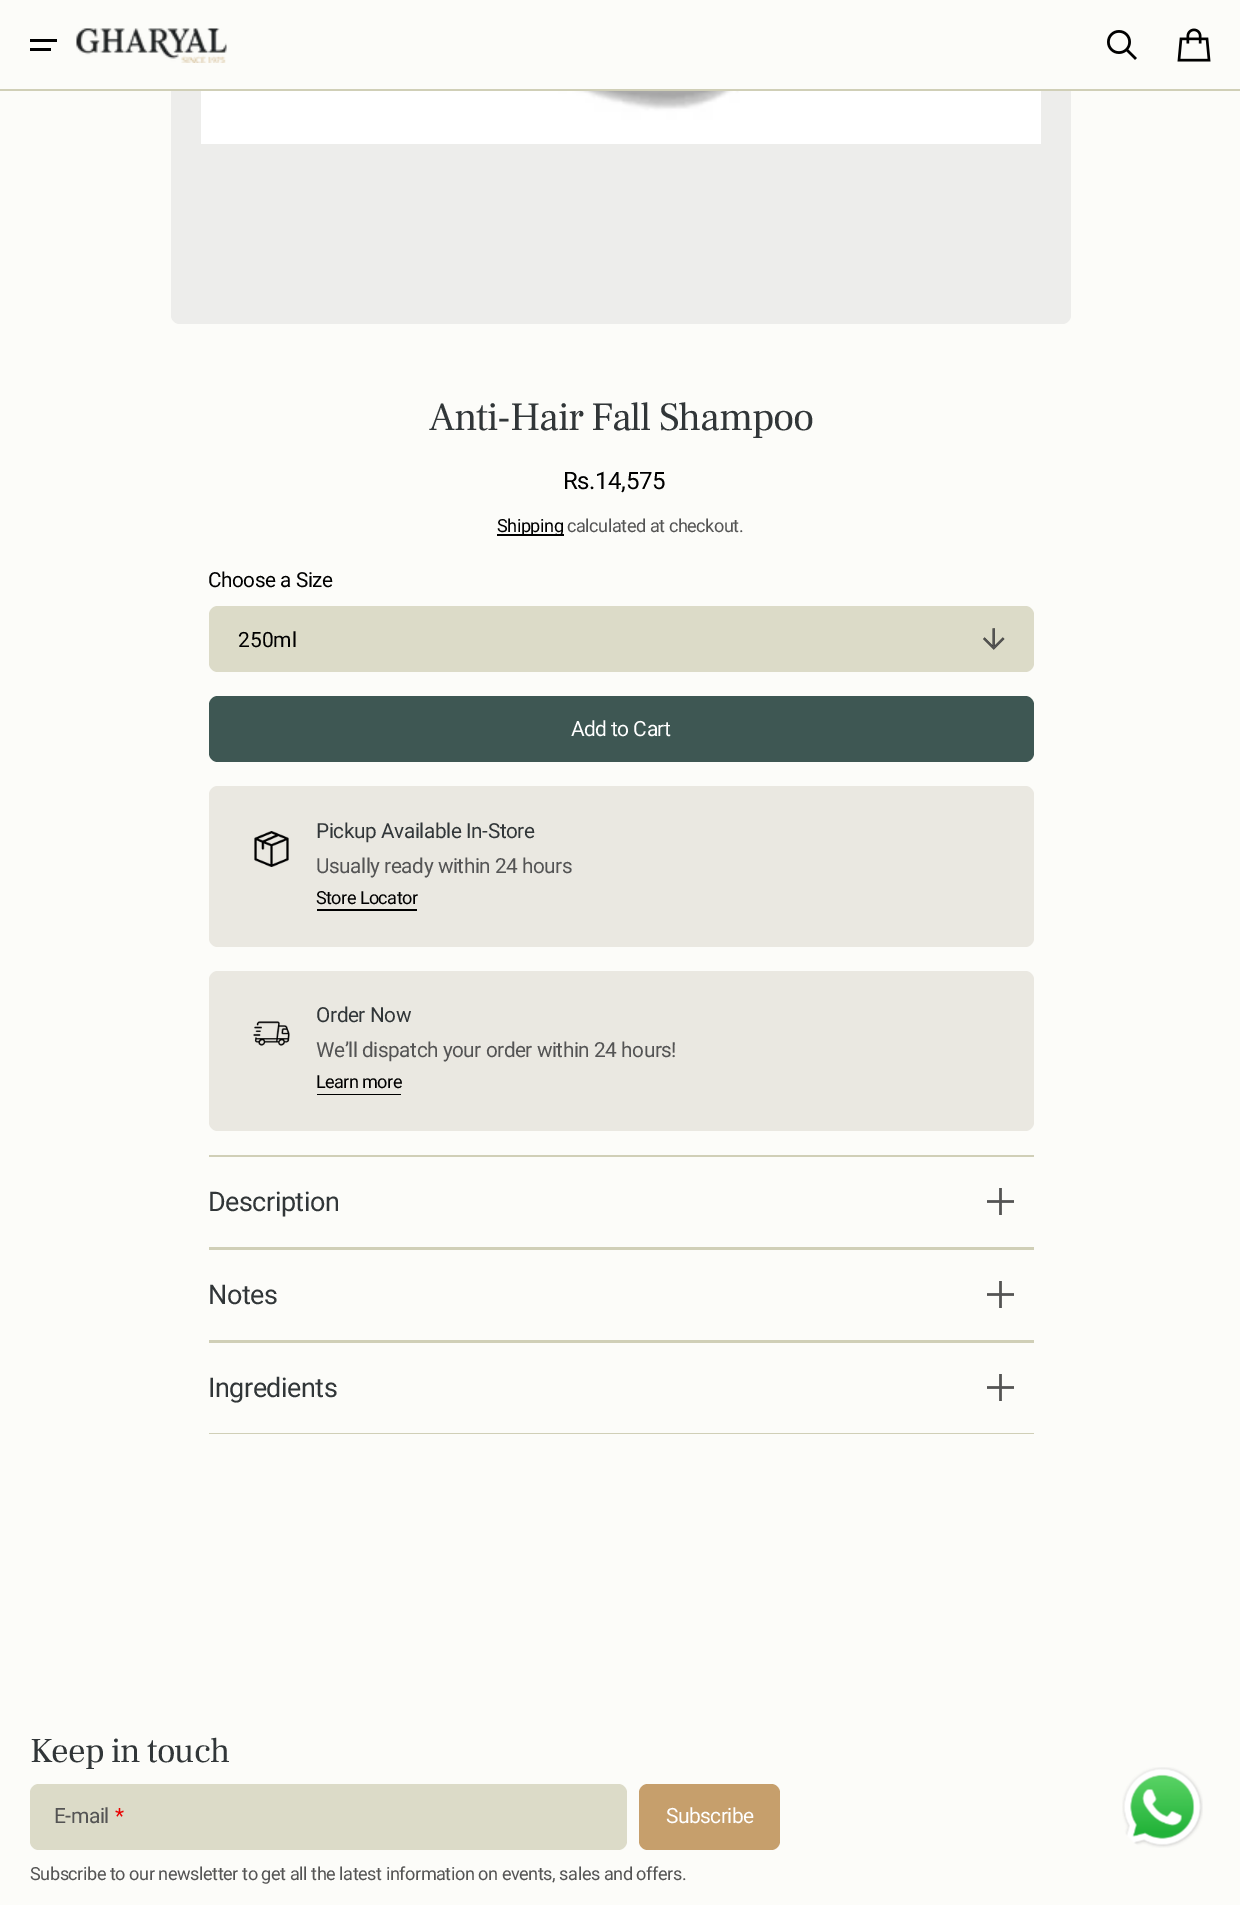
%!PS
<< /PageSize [1240 1905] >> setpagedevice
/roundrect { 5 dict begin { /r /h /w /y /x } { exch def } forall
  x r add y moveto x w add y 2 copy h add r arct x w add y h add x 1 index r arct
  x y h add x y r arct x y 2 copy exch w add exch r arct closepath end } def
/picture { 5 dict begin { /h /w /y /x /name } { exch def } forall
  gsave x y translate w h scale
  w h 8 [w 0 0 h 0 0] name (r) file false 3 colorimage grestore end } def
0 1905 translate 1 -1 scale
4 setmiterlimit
0.988 0.988 0.976 setrgbcolor
0 0 1240 1905 rectfill
0.929 0.929 0.922 setrgbcolor
171 -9 900 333 9 roundrect fill
0.988 0.988 0.976 setrgbcolor
171 0 900 89 rectfill
0 setgray
30 39 27 3 rectfill
30 48 21 3 rectfill
(img1.rgb) 76 28 151 35 picture
(img2.rgb) 1107 30 30 30 picture
(img3.rgb) 1177 28 34 34 picture
0.816 0.812 0.718 setrgbcolor
0 89 1240 2 rectfill
(img4.rgb) 201 91 840 53 picture
/FrankRuhlLibre-Regular [40 0 0 -40 0 0] selectfont
0.192 0.212 0.22 setrgbcolor
429 430 moveto -1.2 0 (Anti-Hair Fall Shampoo) ashow
/roboto-Regular [24 0 0 -24 0 0] selectfont
0 setgray
563 489 moveto -0.45 0 (Rs.14,575) ashow
497 534 67 2 rectfill
/roboto-Regular [18.1 0 0 -18.1 0 0] selectfont
497 532 moveto -0.45 0 (Shipping) ashow
0.329 setgray
567 532 moveto -0.45 0 (calculated at checkout.) ashow
/roboto-Regular [20.75 0 0 -20.75 0 0] selectfont
0 setgray
208 587 moveto -0.45 0 (Choose a Size) ashow
0.863 0.859 0.784 setrgbcolor
209 606 825 66 9 roundrect fill
/roboto-Regular [21 0 0 -21 0 0] selectfont
0 setgray
238 647 moveto (250ml) show
(img5.rgb) 983 628 22 22 picture
0.243 0.341 0.325 setrgbcolor
209 696 825 66 9 roundrect fill
1 setgray
571 736 moveto -0.6 0 (Add to Cart) ashow
0.918 0.91 0.882 setrgbcolor
209 786 825 161 9 roundrect fill
(img6.rgb) 254 831 35 36 picture
/roboto-Regular [20.75 0 0 -20.75 0 0] selectfont
0.192 0.212 0.22 setrgbcolor
316 838 moveto -0.4 0 (Pickup Available In-Store) ashow
0.329 setgray
316 873 moveto -0.45 0 (Usually ready within 24 hours) ashow
0 setgray
317 909 100 2 rectfill
/roboto-Regular [18.1 0 0 -18.1 0 0] selectfont
316 904 moveto -0.6 0 (Store Locator) ashow
0.918 0.91 0.882 setrgbcolor
209 971 825 160 9 roundrect fill
(img7.rgb) 253 1021 37 25 picture
/roboto-Regular [20.75 0 0 -20.75 0 0] selectfont
0.192 0.212 0.22 setrgbcolor
316 1022 moveto -0.4 0 (Order Now) ashow
0.329 setgray
316 1057 moveto -0.45 0 (We’ll dispatch your order within 24 hours!) ashow
0 setgray
317 1094 84 1 rectfill
/roboto-Regular [18.1 0 0 -18.1 0 0] selectfont
316 1088 moveto -0.6 0 (Learn more) ashow
0.816 0.812 0.718 setrgbcolor
209 1155 825 2 rectfill
209 1247 825 3 rectfill
/roboto-Regular [27 0 0 -27 0 0] selectfont
0.192 0.212 0.22 setrgbcolor
208 1211 moveto -0.5 0 (Description) ashow
(img8.rgb) 987 1188 27 27 picture
0.816 0.812 0.718 setrgbcolor
209 1340 825 3 rectfill
0.192 0.212 0.22 setrgbcolor
208 1304 moveto -0.5 0 (Notes) ashow
(img8.rgb) 987 1281 27 27 picture
0.816 0.812 0.718 setrgbcolor
209 1433 825 1 rectfill
0.192 0.212 0.22 setrgbcolor
208 1397 moveto -0.5 0 (Ingredients) ashow
(img8.rgb) 987 1374 27 27 picture
/FrankRuhlLibre-Regular [35 0 0 -35 0 0] selectfont
30 1762 moveto -1 0 (Keep in touch) ashow
0.863 0.859 0.784 setrgbcolor
30 1784 597 66 9 roundrect fill
/roboto-Regular [21 0 0 -21 0 0] selectfont
0.329 setgray
54 1823 moveto -0.45 0 (E-mail) ashow
0.918 0.008 0.008 setrgbcolor
115 1823 moveto -0.45 0 (*) ashow
0.776 0.624 0.424 setrgbcolor
639 1784 141 66 9 roundrect fill
1 setgray
666 1823 moveto -0.6 0 (Subscribe) ashow
/roboto-Regular [18.1 0 0 -18.1 0 0] selectfont
0.329 setgray
30 1880 moveto -0.45 0 (Subscribe to our newsletter to get all the latest information on events, sales and offers.) ashow
(img9.rgb) 1122 1767 81 81 picture
showpage
